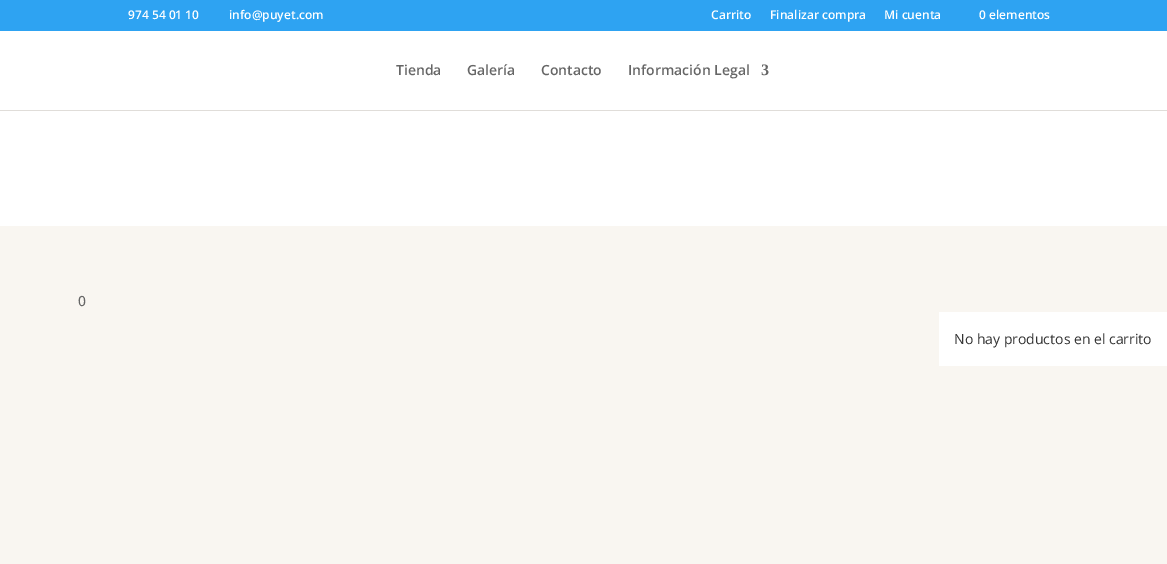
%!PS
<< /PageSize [1167 564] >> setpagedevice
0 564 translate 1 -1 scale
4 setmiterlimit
0.976 0.965 0.945 setrgbcolor
0 0 1167 564 rectfill
0.18 0.639 0.949 setrgbcolor
0 0 1167 31 rectfill
/OpenSans-SemiBold [12 0 0 -12 0 0] selectfont
1 setgray
128 19 moveto (974 54 01 10) show
229 19 moveto (info@puyet.com) show
711 19 moveto (Carrito) show
770 19 moveto (Finalizar compra) show
884 19 moveto (Mi cuenta) show
979 19 moveto (0 elementos) show
0.878 0.867 0.851 setrgbcolor
0 110 1167 1 rectfill
1 setgray
0 31 1167 79 rectfill
/OpenSans-SemiBold [14 0 0 -14 0 0] selectfont
0.4 setgray
396 75 moveto (Tienda) show
467 75 moveto (Galería) show
541 75 moveto (Contacto) show
628 75 moveto (Información Legal) show
/LiberationSerif-Bold [16 0 0 -16 0 0] selectfont
761 75 moveto (3) show
1 setgray
0 111 1167 115 rectfill
/OpenSans-Medium [14 0 0 -14 0 0] selectfont
0.4 setgray
78 306 moveto (0) show
1 setgray
939 312 228 54 rectfill
/OpenSans-Regular [14 0 0 -14 0 0] selectfont
0.2 setgray
954 344 moveto (No hay productos en el carrito) show
showpage
